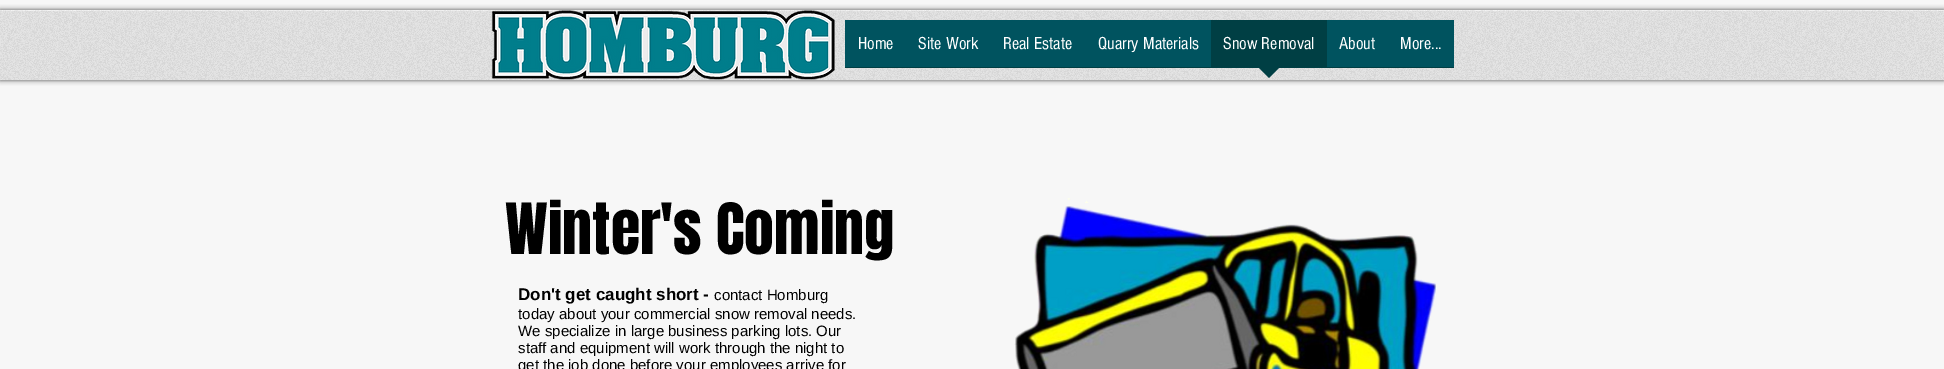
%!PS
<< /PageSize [1944 369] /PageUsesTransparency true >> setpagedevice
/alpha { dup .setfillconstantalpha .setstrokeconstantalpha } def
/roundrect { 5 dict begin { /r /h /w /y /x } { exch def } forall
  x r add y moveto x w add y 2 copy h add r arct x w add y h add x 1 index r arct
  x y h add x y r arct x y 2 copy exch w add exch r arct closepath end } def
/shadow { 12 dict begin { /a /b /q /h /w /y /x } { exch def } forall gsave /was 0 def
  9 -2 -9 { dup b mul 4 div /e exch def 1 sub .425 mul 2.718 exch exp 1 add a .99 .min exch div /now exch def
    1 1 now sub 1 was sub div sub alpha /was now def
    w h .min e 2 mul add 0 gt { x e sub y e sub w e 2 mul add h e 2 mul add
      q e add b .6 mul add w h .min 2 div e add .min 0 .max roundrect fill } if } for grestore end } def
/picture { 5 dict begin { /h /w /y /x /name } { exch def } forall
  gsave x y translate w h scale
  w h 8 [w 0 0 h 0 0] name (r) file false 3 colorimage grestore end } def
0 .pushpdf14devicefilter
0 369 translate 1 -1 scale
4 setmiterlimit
0.969 setgray
0 0 1944 369 rectfill
0.894 setgray
0 11 1944 69 rectfill
0.957 setgray
0 10 1944 1 rectfill
gsave
newpath 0 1 moveto 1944 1 lineto 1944 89 lineto 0 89 lineto closepath 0 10 moveto 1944 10 lineto 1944 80 lineto 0 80 lineto closepath eoclip newpath
0 setgray
0 10 1944 70 0 2.5 0.7 shadow
grestore
(img1.rgb) 0 10 1944 70 picture
(img2.rgb) 491 10 344 70 picture
0 0.325 0.373 setrgbcolor
845 20 609 47 rectfill
0 0.247 0.267 setrgbcolor
845 67 609 1 rectfill
/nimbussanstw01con-Regular [18 0 0 -18 0 0] selectfont
1 setgray
858 49 moveto (Home) show
918 49 moveto (Site Work) show
1003 49 moveto (Real Estate) show
1098 49 moveto (Quarry Materials) show
0 0.247 0.267 setrgbcolor
1211 20 116 47 rectfill
1 setgray
1223 49 moveto (Snow Removal) show
0 0.247 0.267 setrgbcolor
newpath 1258 67 moveto 1280 67 lineto 1269 78 lineto closepath fill
1 setgray
1339 49 moveto (About) show
1400 49 moveto (More...) show
/Anton-Regular [60 0 0 -60 0 0] selectfont
0 setgray
505 254 moveto (Winter's Coming) show
(img3.rgb) 1014 198 423 171 picture
/LiberationSans-Bold [17 0 0 -17 0 0] selectfont
518 300 moveto (Don't get caught short -) show
/LiberationSans-Regular [15 0 0 -15 0 0] selectfont
714 300 moveto (contact Homburg) show
518 319 moveto (today about your commercial snow removal needs.) show
518 336 moveto (We specialize in large business parking lots. Our) show
518 353 moveto (staff and equipment will work through the night to) show
518 370 moveto (get the job done before your employees arrive for) show
.poppdf14devicefilter showpage
